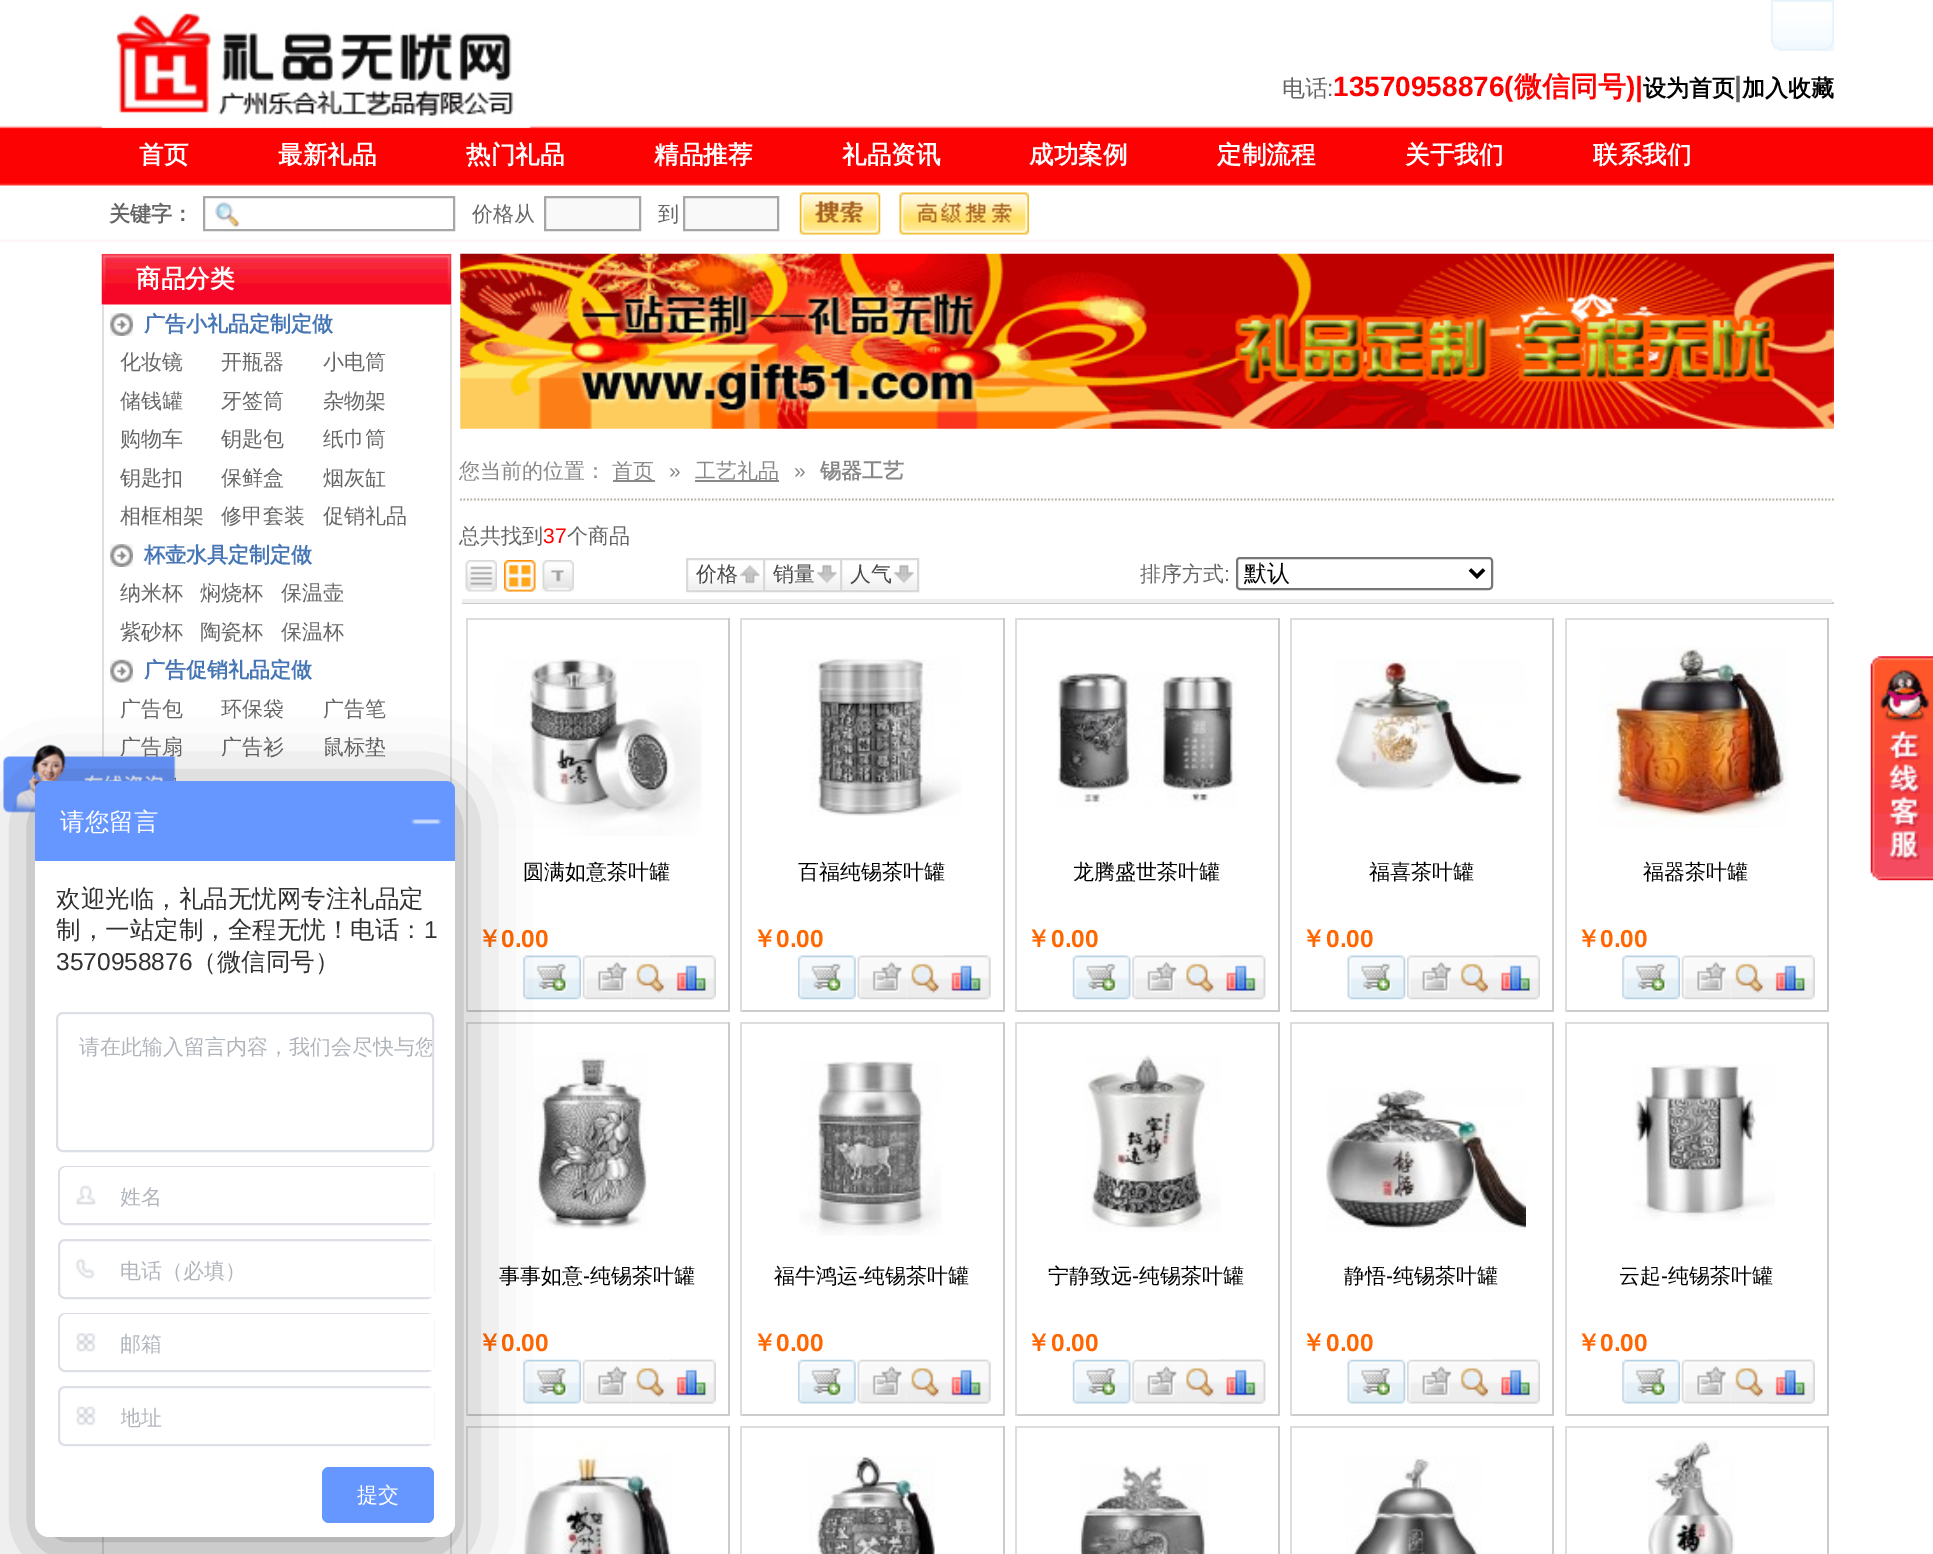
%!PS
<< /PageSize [1933 1554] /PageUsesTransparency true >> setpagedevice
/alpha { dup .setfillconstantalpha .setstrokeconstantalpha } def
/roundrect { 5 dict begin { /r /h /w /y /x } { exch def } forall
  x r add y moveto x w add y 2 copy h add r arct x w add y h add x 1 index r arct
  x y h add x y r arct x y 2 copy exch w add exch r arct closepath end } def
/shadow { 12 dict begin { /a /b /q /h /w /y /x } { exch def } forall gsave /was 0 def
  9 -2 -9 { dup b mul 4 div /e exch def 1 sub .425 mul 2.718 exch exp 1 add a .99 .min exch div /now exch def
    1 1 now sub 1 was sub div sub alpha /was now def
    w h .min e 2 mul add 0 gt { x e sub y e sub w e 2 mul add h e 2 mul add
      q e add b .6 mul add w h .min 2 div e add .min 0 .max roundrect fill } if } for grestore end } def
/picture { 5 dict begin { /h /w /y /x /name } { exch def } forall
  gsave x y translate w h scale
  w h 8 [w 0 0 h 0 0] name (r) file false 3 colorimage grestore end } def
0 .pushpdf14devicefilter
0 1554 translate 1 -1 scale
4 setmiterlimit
1 setgray
0 0 1933 1554 rectfill
(img1.rgb) 0 125 1933 117 picture
(img2.rgb) 101 13 430 115 picture
(img3.rgb) 1771 0 63 51 picture
(img4.rgb) 1822 1 12 50 picture
/WenQuanYiZenHei-Medium [23 0 0 -23 0 0] selectfont
0.4 setgray
1282 96 moveto (电话) show
/LiberationSans-Regular [23 0 0 -23 0 0] selectfont
1327 96 moveto (:) show
/LiberationSans-Bold [28 0 0 -28 0 0] selectfont
1 0 0 setrgbcolor
1333 96 moveto (13570958876\() show
/WenQuanYiZenHei-Bold [28 0 0 -28 0 0] selectfont
1514 96 moveto (微信同号) show
/LiberationSans-Bold [28 0 0 -28 0 0] selectfont
1626 96 moveto (\)|) show
/WenQuanYiZenHei-Bold [23 0 0 -23 0 0] selectfont
0 setgray
1643 96 moveto (设为首页) show
/LiberationSans-Bold [28 0 0 -28 0 0] selectfont
0.4 setgray
1734 96 moveto (|) show
/WenQuanYiZenHei-Bold [23 0 0 -23 0 0] selectfont
0 setgray
1742 96 moveto (加入收藏) show
/WenQuanYiZenHei-Bold [24.5 0 0 -24.5 0 0] selectfont
1 setgray
139 163 moveto (首页) show
278 163 moveto (最新礼品) show
466 163 moveto (热门礼品) show
654 163 moveto (精品推荐) show
842 163 moveto (礼品资讯) show
1029 163 moveto (成功案例) show
1217 163 moveto (定制流程) show
1405 163 moveto (关于我们) show
1593 163 moveto (联系我们) show
/WenQuanYiZenHei-Bold [21 0 0 -21 0 0] selectfont
0.4 setgray
109 221 moveto (关键字：) show
(img5.rgb) 215 201 25 27 picture
0.647 0.655 0.651 setrgbcolor
2 setlinewidth
204 197 250 33 rectstroke
/WenQuanYiZenHei-Medium [21 0 0 -21 0 0] selectfont
0.4 setgray
472 221 moveto (价格从) show
0.976 setgray
newpath 545 197 moveto 640 197 lineto 640 230 lineto 545 230 lineto closepath gsave fill grestore
0.647 0.655 0.651 setrgbcolor
stroke
0.4 setgray
658 221 moveto (到) show
0.976 setgray
newpath 684 197 moveto 778 197 lineto 778 230 lineto 684 230 lineto closepath gsave fill grestore
0.647 0.655 0.651 setrgbcolor
stroke
(img6.rgb) 799 192 82 43 picture
(img7.rgb) 899 192 130 43 picture
(img8.rgb) 101 253 351 52 picture
/WenQuanYiZenHei-Bold [24.5 0 0 -24.5 0 0] selectfont
1 setgray
136 287 moveto (商品分类) show
0.875 setgray
450 305 2 1249 rectfill
102 305 2 1249 rectfill
(img9.rgb) 110 313 23 23 picture
/WenQuanYiZenHei-Bold [21 0 0 -21 0 0] selectfont
0.278 0.463 0.706 setrgbcolor
144 331 moveto (广告小礼品定制定做) show
/WenQuanYiZenHei-Medium [21 0 0 -21 0 0] selectfont
0.4 setgray
120 369 moveto (化妆镜) show
221 369 moveto (开瓶器) show
323 369 moveto (小电筒) show
120 408 moveto (储钱罐) show
221 408 moveto (牙签筒) show
323 408 moveto (杂物架) show
120 446 moveto (购物车) show
221 446 moveto (钥匙包) show
323 446 moveto (纸巾筒) show
120 485 moveto (钥匙扣) show
221 485 moveto (保鲜盒) show
323 485 moveto (烟灰缸) show
120 523 moveto (相框相架) show
221 523 moveto (修甲套装) show
323 523 moveto (促销礼品) show
(img9.rgb) 110 544 23 23 picture
/WenQuanYiZenHei-Bold [21 0 0 -21 0 0] selectfont
0.278 0.463 0.706 setrgbcolor
144 562 moveto (杯壶水具定制定做) show
/WenQuanYiZenHei-Medium [21 0 0 -21 0 0] selectfont
0.4 setgray
120 600 moveto (纳米杯) show
200 600 moveto (焖烧杯) show
281 600 moveto (保温壶) show
120 639 moveto (紫砂杯) show
200 639 moveto (陶瓷杯) show
281 639 moveto (保温杯) show
(img10.rgb) 110 659 23 24 picture
/WenQuanYiZenHei-Bold [21 0 0 -21 0 0] selectfont
0.278 0.463 0.706 setrgbcolor
144 677 moveto (广告促销礼品定做) show
/WenQuanYiZenHei-Medium [21 0 0 -21 0 0] selectfont
0.4 setgray
120 716 moveto (广告包) show
221 716 moveto (环保袋) show
323 716 moveto (广告笔) show
120 754 moveto (广告扇) show
221 754 moveto (广告衫) show
323 754 moveto (鼠标垫) show
(img11.rgb) 460 253 1374 176 picture
0.698 0.675 0.62 setrgbcolor
1.8 setlinewidth
[1.75 1.75] 0 setdash
newpath 460 499.5 moveto 1834 499.5 lineto stroke
0.533 setgray
459 478 moveto (您当前的位置：) show
613 480 42 2 rectfill
612 478 moveto (首页) show
/LiberationSans-Regular [21 0 0 -21 0 0] selectfont
669 478 moveto (») show
695 480 84 2 rectfill
/WenQuanYiZenHei-Medium [21 0 0 -21 0 0] selectfont
695 478 moveto (工艺礼品) show
/LiberationSans-Regular [21 0 0 -21 0 0] selectfont
794 478 moveto (») show
/WenQuanYiZenHei-Bold [21 0 0 -21 0 0] selectfont
820 478 moveto (锡器工艺) show
/WenQuanYiZenHei-Medium [21 0 0 -21 0 0] selectfont
0.4 setgray
459 543 moveto (总共找到) show
/LiberationSans-Regular [21 0 0 -21 0 0] selectfont
1 0 0 setrgbcolor
543 543 moveto (37) show
/WenQuanYiZenHei-Medium [21 0 0 -21 0 0] selectfont
0.4 setgray
567 543 moveto (个商品) show
0.8 setgray
460 602 1374 2 rectfill
1 setgray
460 602 2 2 rectfill
0.937 setgray
462 599 1370 4 rectfill
(img12.rgb) 465 560 32 32 picture
(img13.rgb) 504 560 32 32 picture
(img14.rgb) 542 560 32 32 picture
(img15.rgb) 688 576 75 14 picture
0.851 setgray
2 setlinewidth
[] 0 setdash
687 559 77 32 rectstroke
(img16.rgb) 740 565 20 19 picture
0.29 setgray
696 581 moveto (价格) show
(img17.rgb) 765 560 75 30 picture
0.851 setgray
764 559 77 32 rectstroke
(img18.rgb) 817 564 20 20 picture
0.29 setgray
773 581 moveto (销量) show
(img17.rgb) 842 560 75 30 picture
0.851 setgray
841 559 77 32 rectstroke
(img18.rgb) 894 564 20 20 picture
0.29 setgray
850 581 moveto (人气) show
0.4 setgray
1140 581 moveto (排序方式) show
/LiberationSans-Regular [21 0 0 -21 0 0] selectfont
1224 581 moveto (:) show
0.463 setgray
1237 558 255 31 3 roundrect stroke
0 setgray
3.5 setlinewidth
newpath 1470 569.5 moveto 1477 576.5 lineto 1484 569.5 lineto stroke
/WenQuanYiZenHei-Medium [23 0 0 -23 0 0] selectfont
1244 581 moveto (默认) show
0.867 setgray
466 618 264 2 rectfill
0.8 setgray
728 618 2 394 rectfill
466 1010 264 2 rectfill
0.867 setgray
466 618 2 394 rectfill
(img19.rgb) 492 659 210 177 picture
/WenQuanYiZenHei-Medium [21 0 0 -21 0 0] selectfont
0 setgray
523 879 moveto (圆满如意茶叶罐) show
/WenQuanYiZenHei-Bold [24.5 0 0 -24.5 0 0] selectfont
1 0.4 0 setrgbcolor
477 947 moveto (￥) show
/LiberationSans-Bold [24.5 0 0 -24.5 0 0] selectfont
501 947 moveto (0.00) show
(img20.rgb) 523 955 58 45 picture
(img21.rgb) 582 955 50 45 picture
(img22.rgb) 632 955 40 45 picture
(img23.rgb) 670 955 46 45 picture
(img24.rgb) 670 955 46 45 picture
0.867 setgray
740 618 265 2 rectfill
0.8 setgray
1003 618 2 394 rectfill
740 1010 265 2 rectfill
0.867 setgray
740 618 2 394 rectfill
(img25.rgb) 809 658 153 158 picture
/WenQuanYiZenHei-Medium [21 0 0 -21 0 0] selectfont
0 setgray
798 879 moveto (百福纯锡茶叶罐) show
/WenQuanYiZenHei-Bold [24.5 0 0 -24.5 0 0] selectfont
1 0.4 0 setrgbcolor
752 947 moveto (￥) show
/LiberationSans-Bold [24.5 0 0 -24.5 0 0] selectfont
776 947 moveto (0.00) show
(img26.rgb) 798 955 58 45 picture
(img27.rgb) 857 955 50 45 picture
(img28.rgb) 906 955 41 45 picture
(img29.rgb) 945 955 46 45 picture
(img30.rgb) 945 955 46 45 picture
0.867 setgray
1015 618 264 2 rectfill
0.8 setgray
1278 618 2 394 rectfill
1015 1010 264 2 rectfill
0.867 setgray
1015 618 2 394 rectfill
(img31.rgb) 1057 673 180 134 picture
/WenQuanYiZenHei-Medium [21 0 0 -21 0 0] selectfont
0 setgray
1073 879 moveto (龙腾盛世茶叶罐) show
/WenQuanYiZenHei-Bold [24.5 0 0 -24.5 0 0] selectfont
1 0.4 0 setrgbcolor
1026 947 moveto (￥) show
/LiberationSans-Bold [24.5 0 0 -24.5 0 0] selectfont
1051 947 moveto (0.00) show
(img32.rgb) 1072 955 59 45 picture
(img33.rgb) 1132 955 50 45 picture
(img34.rgb) 1181 955 41 45 picture
(img35.rgb) 1220 955 46 45 picture
(img36.rgb) 1220 955 46 45 picture
0.867 setgray
1290 618 264 2 rectfill
0.8 setgray
1552 618 2 394 rectfill
1290 1010 264 2 rectfill
0.867 setgray
1290 618 2 394 rectfill
(img37.rgb) 1332 659 194 134 picture
/WenQuanYiZenHei-Medium [21 0 0 -21 0 0] selectfont
0 setgray
1369 879 moveto (福喜茶叶罐) show
/WenQuanYiZenHei-Bold [24.5 0 0 -24.5 0 0] selectfont
1 0.4 0 setrgbcolor
1301 947 moveto (￥) show
/LiberationSans-Bold [24.5 0 0 -24.5 0 0] selectfont
1326 947 moveto (0.00) show
(img38.rgb) 1347 955 59 45 picture
(img39.rgb) 1407 955 49 45 picture
(img40.rgb) 1456 955 41 45 picture
(img41.rgb) 1494 955 46 45 picture
(img42.rgb) 1495 955 43 45 picture
0.867 setgray
1565 618 264 2 rectfill
0.8 setgray
1827 618 2 394 rectfill
1565 1010 264 2 rectfill
0.867 setgray
1565 618 2 394 rectfill
(img43.rgb) 1598 646 190 182 picture
/WenQuanYiZenHei-Medium [21 0 0 -21 0 0] selectfont
0 setgray
1643 879 moveto (福器茶叶罐) show
/WenQuanYiZenHei-Bold [24.5 0 0 -24.5 0 0] selectfont
1 0.4 0 setrgbcolor
1576 947 moveto (￥) show
/LiberationSans-Bold [24.5 0 0 -24.5 0 0] selectfont
1600 947 moveto (0.00) show
(img20.rgb) 1622 955 58 45 picture
(img21.rgb) 1681 955 50 45 picture
(img22.rgb) 1731 955 40 45 picture
(img44.rgb) 1769 955 46 45 picture
(img45.rgb) 1769 955 46 45 picture
0.867 setgray
466 1022 264 2 rectfill
0.8 setgray
728 1022 2 394 rectfill
466 1414 264 2 rectfill
0.867 setgray
466 1022 2 394 rectfill
(img46.rgb) 534 1052 113 178 picture
/WenQuanYiZenHei-Medium [21 0 0 -21 0 0] selectfont
0 setgray
499 1283 moveto (事事如意) show
/LiberationSans-Regular [21 0 0 -21 0 0] selectfont
583 1283 moveto (-) show
/WenQuanYiZenHei-Medium [21 0 0 -21 0 0] selectfont
590 1283 moveto (纯锡茶叶罐) show
/WenQuanYiZenHei-Bold [24.5 0 0 -24.5 0 0] selectfont
1 0.4 0 setrgbcolor
477 1351 moveto (￥) show
/LiberationSans-Bold [24.5 0 0 -24.5 0 0] selectfont
501 1351 moveto (0.00) show
(img47.rgb) 523 1359 58 45 picture
(img48.rgb) 582 1359 50 45 picture
(img49.rgb) 632 1359 40 45 picture
(img50.rgb) 670 1359 46 45 picture
(img51.rgb) 670 1359 46 45 picture
0.867 setgray
740 1022 265 2 rectfill
0.8 setgray
1003 1022 2 394 rectfill
740 1414 265 2 rectfill
0.867 setgray
740 1022 2 394 rectfill
(img52.rgb) 799 1061 143 175 picture
/WenQuanYiZenHei-Medium [21 0 0 -21 0 0] selectfont
0 setgray
774 1283 moveto (福牛鸿运) show
/LiberationSans-Regular [21 0 0 -21 0 0] selectfont
858 1283 moveto (-) show
/WenQuanYiZenHei-Medium [21 0 0 -21 0 0] selectfont
864 1283 moveto (纯锡茶叶罐) show
/WenQuanYiZenHei-Bold [24.5 0 0 -24.5 0 0] selectfont
1 0.4 0 setrgbcolor
752 1351 moveto (￥) show
/LiberationSans-Bold [24.5 0 0 -24.5 0 0] selectfont
776 1351 moveto (0.00) show
(img53.rgb) 798 1359 58 45 picture
(img54.rgb) 857 1359 50 45 picture
(img55.rgb) 906 1359 41 45 picture
(img56.rgb) 945 1359 46 45 picture
(img57.rgb) 945 1359 46 45 picture
0.867 setgray
1015 1022 264 2 rectfill
0.8 setgray
1278 1022 2 394 rectfill
1015 1414 264 2 rectfill
0.867 setgray
1015 1022 2 394 rectfill
(img58.rgb) 1084 1054 137 178 picture
/WenQuanYiZenHei-Medium [21 0 0 -21 0 0] selectfont
0 setgray
1048 1283 moveto (宁静致远) show
/LiberationSans-Regular [21 0 0 -21 0 0] selectfont
1132 1283 moveto (-) show
/WenQuanYiZenHei-Medium [21 0 0 -21 0 0] selectfont
1139 1283 moveto (纯锡茶叶罐) show
/WenQuanYiZenHei-Bold [24.5 0 0 -24.5 0 0] selectfont
1 0.4 0 setrgbcolor
1026 1351 moveto (￥) show
/LiberationSans-Bold [24.5 0 0 -24.5 0 0] selectfont
1051 1351 moveto (0.00) show
(img59.rgb) 1072 1359 59 45 picture
(img60.rgb) 1132 1359 50 45 picture
(img61.rgb) 1181 1359 41 45 picture
(img62.rgb) 1220 1359 46 45 picture
(img63.rgb) 1220 1359 46 45 picture
0.867 setgray
1290 1022 264 2 rectfill
0.8 setgray
1552 1022 2 394 rectfill
1290 1414 264 2 rectfill
0.867 setgray
1290 1022 2 394 rectfill
(img64.rgb) 1326 1084 200 148 picture
/WenQuanYiZenHei-Medium [21 0 0 -21 0 0] selectfont
0 setgray
1344 1283 moveto (静悟) show
/LiberationSans-Regular [21 0 0 -21 0 0] selectfont
1386 1283 moveto (-) show
/WenQuanYiZenHei-Medium [21 0 0 -21 0 0] selectfont
1393 1283 moveto (纯锡茶叶罐) show
/WenQuanYiZenHei-Bold [24.5 0 0 -24.5 0 0] selectfont
1 0.4 0 setrgbcolor
1301 1351 moveto (￥) show
/LiberationSans-Bold [24.5 0 0 -24.5 0 0] selectfont
1326 1351 moveto (0.00) show
(img65.rgb) 1347 1359 59 45 picture
(img66.rgb) 1407 1359 49 45 picture
(img67.rgb) 1456 1359 41 45 picture
(img68.rgb) 1494 1359 46 45 picture
(img69.rgb) 1495 1359 43 45 picture
0.867 setgray
1565 1022 264 2 rectfill
0.8 setgray
1827 1022 2 394 rectfill
1565 1414 264 2 rectfill
0.867 setgray
1565 1022 2 394 rectfill
(img70.rgb) 1633 1064 142 157 picture
/WenQuanYiZenHei-Medium [21 0 0 -21 0 0] selectfont
0 setgray
1619 1283 moveto (云起) show
/LiberationSans-Regular [21 0 0 -21 0 0] selectfont
1661 1283 moveto (-) show
/WenQuanYiZenHei-Medium [21 0 0 -21 0 0] selectfont
1668 1283 moveto (纯锡茶叶罐) show
/WenQuanYiZenHei-Bold [24.5 0 0 -24.5 0 0] selectfont
1 0.4 0 setrgbcolor
1576 1351 moveto (￥) show
/LiberationSans-Bold [24.5 0 0 -24.5 0 0] selectfont
1600 1351 moveto (0.00) show
(img47.rgb) 1622 1359 58 45 picture
(img48.rgb) 1681 1359 50 45 picture
(img49.rgb) 1731 1359 40 45 picture
(img71.rgb) 1769 1359 46 45 picture
(img72.rgb) 1769 1359 46 45 picture
0.867 setgray
466 1426 264 2 rectfill
0.8 setgray
728 1426 2 128 rectfill
0.867 setgray
466 1426 2 128 rectfill
(img73.rgb) 523 1441 149 113 picture
740 1426 265 2 rectfill
0.8 setgray
1003 1426 2 128 rectfill
0.867 setgray
740 1426 2 128 rectfill
(img74.rgb) 809 1456 126 98 picture
1015 1426 264 2 rectfill
0.8 setgray
1278 1426 2 128 rectfill
0.867 setgray
1015 1426 2 128 rectfill
(img75.rgb) 1079 1465 130 89 picture
1290 1426 264 2 rectfill
0.8 setgray
1552 1426 2 128 rectfill
0.867 setgray
1290 1426 2 128 rectfill
(img76.rgb) 1346 1456 136 98 picture
1565 1426 264 2 rectfill
0.8 setgray
1827 1426 2 128 rectfill
0.867 setgray
1565 1426 2 128 rectfill
(img77.rgb) 1648 1440 87 114 picture
(img78.rgb) 1870 656 63 225 picture
(img79.rgb) 3 744 173 69 picture
0 setgray
35 795 420 756 14 35 0.4 shadow
1 setgray
35 781 420 756 14 roundrect fill
0.4 0.588 1 setrgbcolor
newpath 44 781 moveto 446 781 lineto 451 781 455 785 455 790 curveto 455 861 lineto 35 861 lineto 35 790 lineto 35 785 39 781 44 781 curveto closepath fill
/WenQuanYiZenHei-Medium [24.5 0 0 -24.5 0 0] selectfont
1 setgray
60 830 moveto (请您留言) show
(img80.rgb) 410 819 32 6 picture
0.188 0.192 0.2 setrgbcolor
56 907 moveto (欢迎光临，礼品无忧网专注礼品定) show
56 938 moveto (制，一站定制，全程无忧！电话：) show
/LiberationSans-Regular [24.5 0 0 -24.5 0 0] selectfont
424 938 moveto (1) show
56 970 moveto (3570958876) show
/WenQuanYiZenHei-Medium [24.5 0 0 -24.5 0 0] selectfont
192 970 moveto (（微信同号）) show
0.863 0.875 0.902 setrgbcolor
2 setlinewidth
57 1013 376 138 6 roundrect stroke
gsave
58 1013 374 137 5 roundrect clip newpath
/WenQuanYiZenHei-Medium [21 0 0 -21 0 0] selectfont
0.69 0.706 0.733 setrgbcolor
79 1054 moveto (请在此输入留言内容，我们会尽快与您) show
grestore
59 1167 374 57 6 roundrect stroke
1 setgray
newpath 67 1167 moveto 121 1167 lineto 121 1223 lineto 67 1223 lineto 63 1223 60 1220 60 1216 curveto 60 1174 lineto 60 1170 63 1167 67 1167 curveto closepath fill
(img81.rgb) 75 1184 21 21 picture
121 1167 313 56 rectfill
gsave
121 1183 317 30 rectclip
/WenQuanYiZenHei-Medium [21 0 0 -21 0 0] selectfont
0.69 0.706 0.733 setrgbcolor
120 1204 moveto (姓名) show
grestore
0.863 0.875 0.902 setrgbcolor
59 1240 374 58 6 roundrect stroke
(img82.rgb) 75 1258 20 21 picture
1 setgray
428 1241 6 56 rectfill
/WenQuanYiZenHei-Medium [21 0 0 -21 0 0] selectfont
0.69 0.706 0.733 setrgbcolor
120 1278 moveto (电话（必填）) show
0.863 0.875 0.902 setrgbcolor
59 1314 374 57 6 roundrect stroke
1 setgray
newpath 67 1314 moveto 121 1314 lineto 121 1370 lineto 67 1370 lineto 63 1370 60 1367 60 1363 curveto 60 1321 lineto 60 1317 63 1314 67 1314 curveto closepath fill
(img83.rgb) 76 1333 20 19 picture
121 1314 313 56 rectfill
0.69 0.706 0.733 setrgbcolor
120 1351 moveto (邮箱) show
0.863 0.875 0.902 setrgbcolor
59 1387 374 58 6 roundrect stroke
(img84.rgb) 76 1406 20 20 picture
1 setgray
428 1388 6 56 rectfill
gsave
121 1404 317 29 rectclip
0.69 0.706 0.733 setrgbcolor
120 1425 moveto (地址) show
grestore
0.4 0.588 1 setrgbcolor
322 1467 112 56 7 roundrect fill
1 setgray
357 1502 moveto (提交) show
.poppdf14devicefilter showpage
